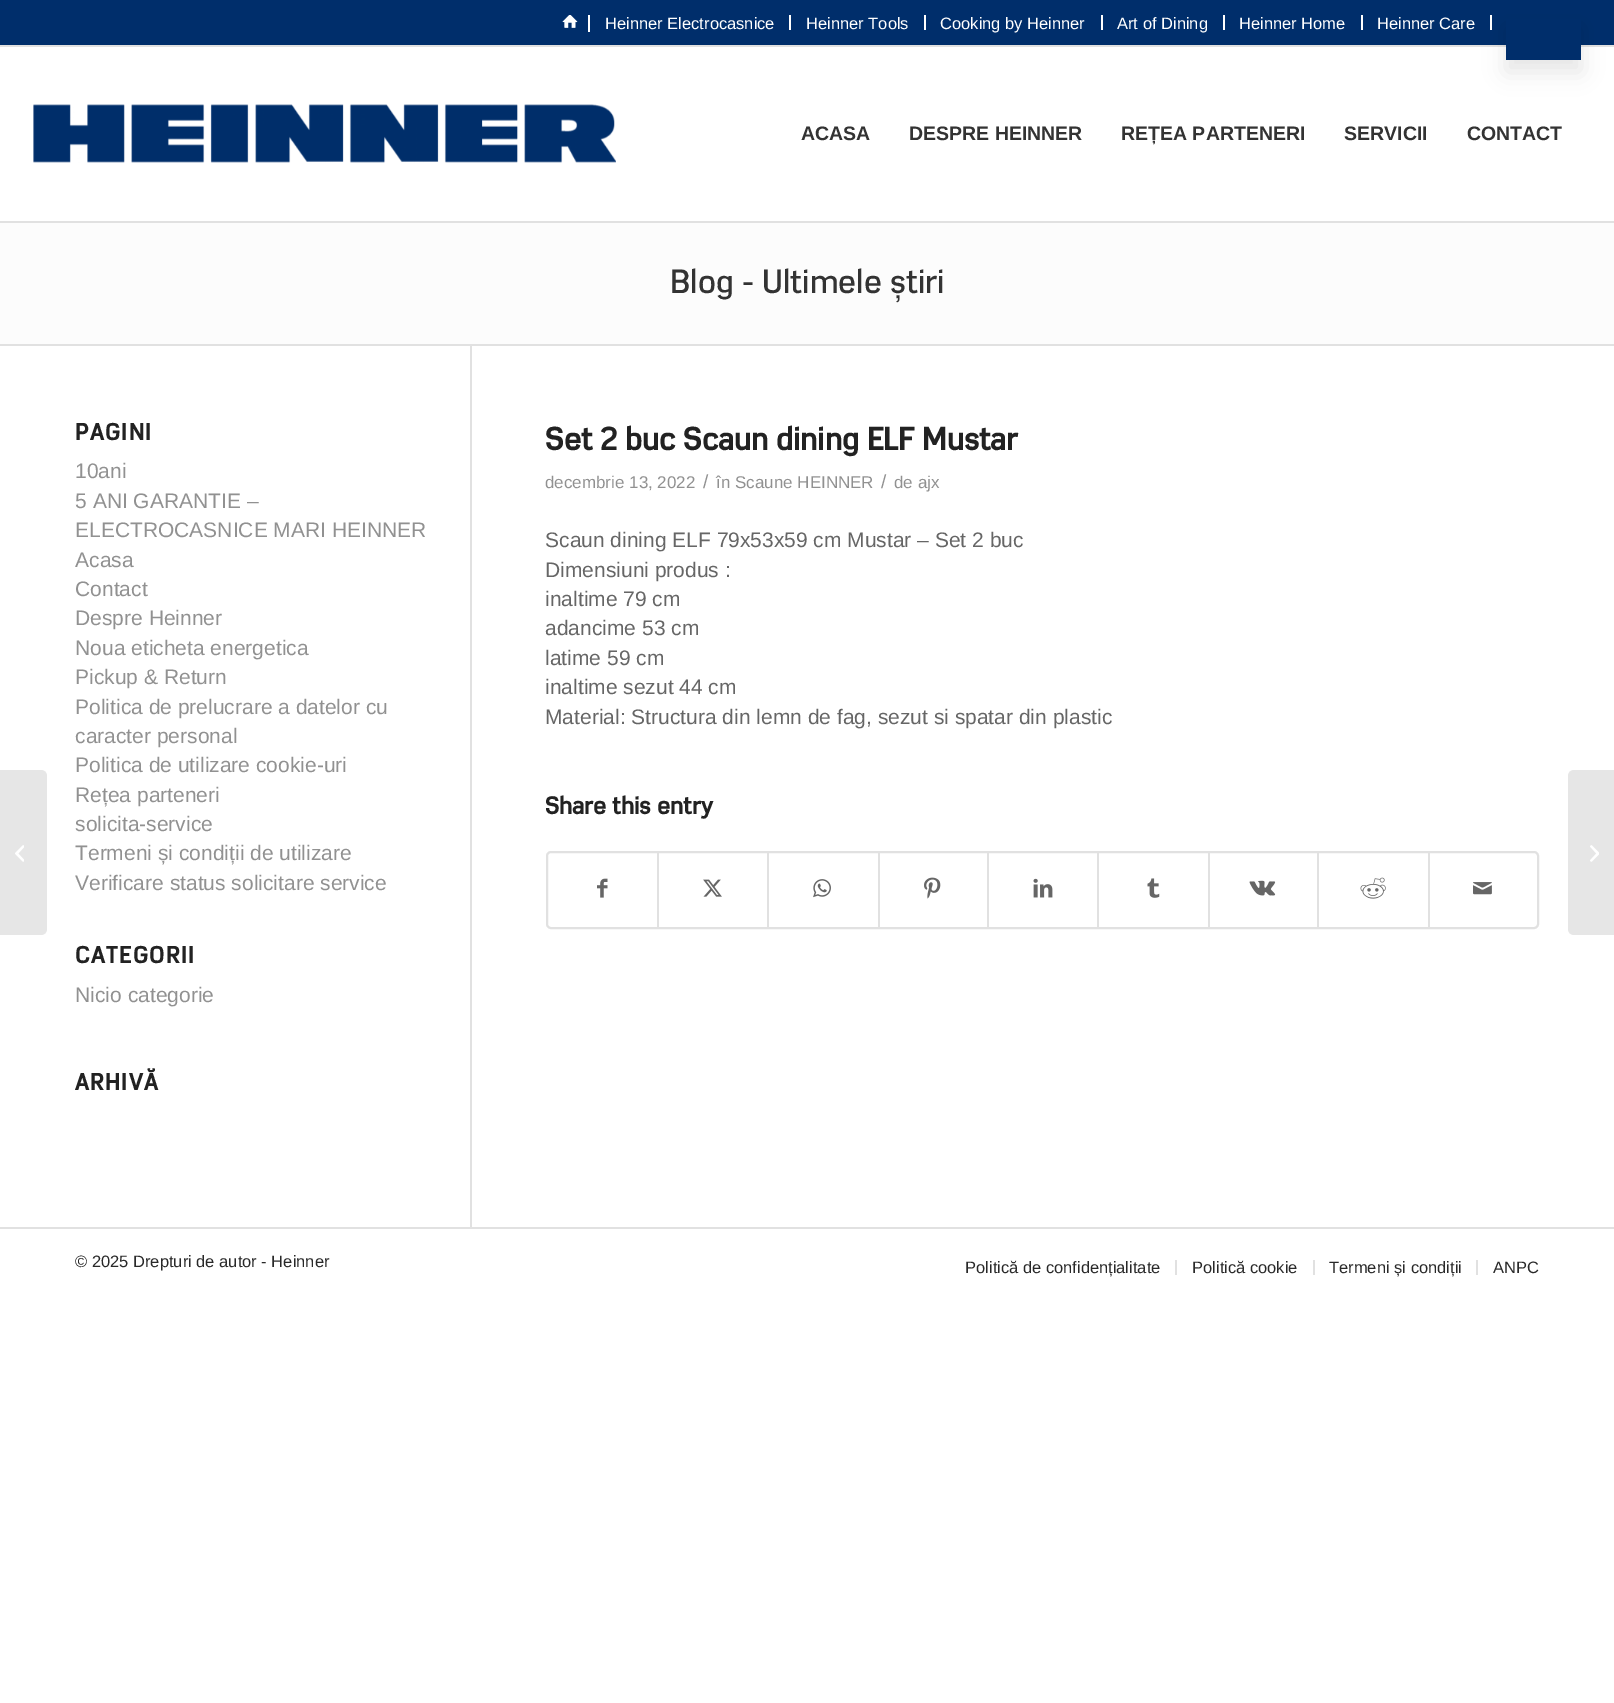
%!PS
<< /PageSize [1614 1703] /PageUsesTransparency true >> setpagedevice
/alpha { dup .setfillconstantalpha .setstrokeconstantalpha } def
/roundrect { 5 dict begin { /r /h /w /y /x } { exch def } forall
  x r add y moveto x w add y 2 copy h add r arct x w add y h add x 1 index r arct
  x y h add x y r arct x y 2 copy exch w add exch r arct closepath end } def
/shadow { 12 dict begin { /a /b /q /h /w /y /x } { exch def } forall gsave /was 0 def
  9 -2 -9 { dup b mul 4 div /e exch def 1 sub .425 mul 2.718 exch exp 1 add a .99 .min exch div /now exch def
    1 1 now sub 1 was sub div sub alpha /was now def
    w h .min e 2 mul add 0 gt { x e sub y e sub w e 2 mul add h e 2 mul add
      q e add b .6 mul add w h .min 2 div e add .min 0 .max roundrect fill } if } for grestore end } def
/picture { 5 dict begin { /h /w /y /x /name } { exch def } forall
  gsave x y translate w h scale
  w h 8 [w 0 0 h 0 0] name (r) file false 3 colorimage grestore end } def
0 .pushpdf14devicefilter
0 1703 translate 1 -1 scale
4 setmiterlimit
1 setgray
0 0 1614 1703 rectfill
0 0.18 0.42 setrgbcolor
0 0 1614 45 rectfill
0.882 setgray
0 45 1614 2 rectfill
1 setgray
588 15 2 17 rectfill
(img1.rgb) 562 15 16 13 picture
789 15 2 15 rectfill
/LiberationSans-Regular [16.5 0 0 -16.5 0 0] selectfont
605 29 moveto (Heinner Electrocasnice) show
924 15 2 15 rectfill
806 29 moveto (Heinner Tools) show
1101 15 2 15 rectfill
940 29 moveto (Cooking by Heinner) show
1223 15 2 15 rectfill
1117 29 moveto (Art of Dining) show
1361 15 2 15 rectfill
1239 29 moveto (Heinner Home) show
1490 15 2 15 rectfill
1377 29 moveto (Heinner Care) show
0 setgray
1506 27 75 45 0 11 0.1 shadow
0 0.18 0.42 setrgbcolor
1506 19 75 41 rectfill
0.882 setgray
0 221 1614 2 rectfill
(img2.rgb) 33 104 583 59 picture
/LiberationSans-Bold [19.5 0 0 -19.5 0 0] selectfont
0.2 setgray
801 140 moveto (ACASA) show
909 140 moveto (DESPRE HEINNER) show
1121 140 moveto (REȚEA PARTENERI) show
1344 140 moveto (SERVICII) show
1467 140 moveto (CONTACT) show
0.902 setgray
newpath 0 770 moveto 41 770 lineto 44.5 770 47 772.5 47 776 curveto 47 929 lineto 47 932.5 44.5 935 41 935 curveto 0 935 lineto closepath fill
(img3.rgb) 15 845 9 17 picture
0.988 setgray
0 223 1614 121 rectfill
/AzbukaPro-Medium [33 0 0 -33 0 0] selectfont
0.2 setgray
670 293 moveto (Blog - Ultimele știri) show
0.882 setgray
0 344 1614 2 rectfill
470 345 2 884 rectfill
/AzbukaPro-Bold [23 0 0 -23 0 0] selectfont
0.133 setgray
75 440 moveto 1.5 0 (PAGINI) ashow
/LiberationSans-Regular [21 0 0 -21 0 0] selectfont
0.569 setgray
75 478 moveto (10ani) show
75 508 moveto (5 ANI GARANTIE –) show
75 537 moveto (ELECTROCASNICE MARI HEINNER) show
75 567 moveto (Acasa) show
75 596 moveto (Contact) show
75 625 moveto (Despre Heinner) show
75 655 moveto (Noua eticheta energetica) show
75 684 moveto (Pickup & Return) show
75 714 moveto (Politica de prelucrare a datelor cu) show
75 743 moveto (caracter personal) show
75 772 moveto (Politica de utilizare cookie-uri) show
75 802 moveto (Rețea parteneri) show
75 831 moveto (solicita-service) show
75 860 moveto (Termeni și condiții de utilizare) show
75 890 moveto (Verificare status solicitare service) show
/AzbukaPro-Bold [23 0 0 -23 0 0] selectfont
0.133 setgray
75 963 moveto 1.5 0 (CATEGORII) ashow
/LiberationSans-Regular [21 0 0 -21 0 0] selectfont
0.569 setgray
75 1002 moveto (Nicio categorie) show
/AzbukaPro-Bold [23 0 0 -23 0 0] selectfont
0.133 setgray
75 1090 moveto 1.5 0 (ARHIVĂ) ashow
/AzbukaPro-Bold [31.5 0 0 -31.5 0 0] selectfont
545 450 moveto (Set 2 buc Scaun dining ELF Mustar) show
/LiberationSans-Regular [17 0 0 -17 0 0] selectfont
0.569 setgray
545 488 moveto (decembrie 13, 2022) show
/LiberationSans-Regular [19 0 0 -19 0 0] selectfont
703 488 moveto (/) show
/LiberationSans-Regular [17 0 0 -17 0 0] selectfont
716 488 moveto (în Scaune HEINNER) show
/LiberationSans-Regular [19 0 0 -19 0 0] selectfont
881 488 moveto (/) show
/LiberationSans-Regular [17 0 0 -17 0 0] selectfont
894 488 moveto (de ajx) show
/LiberationSans-Regular [21 0 0 -21 0 0] selectfont
0.4 setgray
545 547 moveto (Scaun dining ELF 79x53x59 cm Mustar – Set 2 buc) show
545 577 moveto (Dimensiuni produs :) show
545 606 moveto (inaltime 79 cm) show
545 635 moveto (adancime 53 cm) show
545 665 moveto (latime 59 cm) show
545 694 moveto (inaltime sezut 44 cm) show
545 724 moveto (Material: Structura din lemn de fag, sezut si spatar din plastic) show
/AzbukaPro-Bold [24 0 0 -24 0 0] selectfont
0.133 setgray
545 814 moveto (Share this entry) show
0.882 setgray
2 setlinewidth
547 852 991 76 4 roundrect stroke
(img4.rgb) 597 878 11 20 picture
657 852 2 75 rectfill
(img5.rgb) 703 879 19 18 picture
767 852 2 75 rectfill
(img6.rgb) 813 879 18 19 picture
878 852 2 75 rectfill
(img7.rgb) 924 877 17 22 picture
987 852 2 75 rectfill
(img8.rgb) 1033 878 20 20 picture
1097 852 2 75 rectfill
(img9.rgb) 1147 878 13 20 picture
1208 852 2 75 rectfill
(img10.rgb) 1249 880 27 16 picture
1317 852 2 75 rectfill
(img11.rgb) 1360 877 26 22 picture
1428 852 2 75 rectfill
(img12.rgb) 1473 882 19 13 picture
0 1227 1614 2 rectfill
/LiberationSans-Regular [16.5 0 0 -16.5 0 0] selectfont
0.161 setgray
75 1267 moveto (© 2025 Drepturi de autor - Heinner) show
965 1273 moveto (Politică de confidențialitate) show
0.882 setgray
1175 1260 2 15 rectfill
0.161 setgray
1192 1273 moveto (Politică cookie) show
0.882 setgray
1313 1260 2 15 rectfill
0.161 setgray
1329 1273 moveto (Termeni și condiții) show
0.882 setgray
1476 1260 2 15 rectfill
0.161 setgray
1493 1273 moveto (ANPC) show
0.902 setgray
newpath 1574 770 moveto 1614 770 lineto 1614 935 lineto 1574 935 lineto 1570.5 935 1568 932.5 1568 929 curveto 1568 776 lineto 1568 772.5 1570.5 770 1574 770 curveto closepath fill
(img13.rgb) 1590 845 9 17 picture
.poppdf14devicefilter showpage
